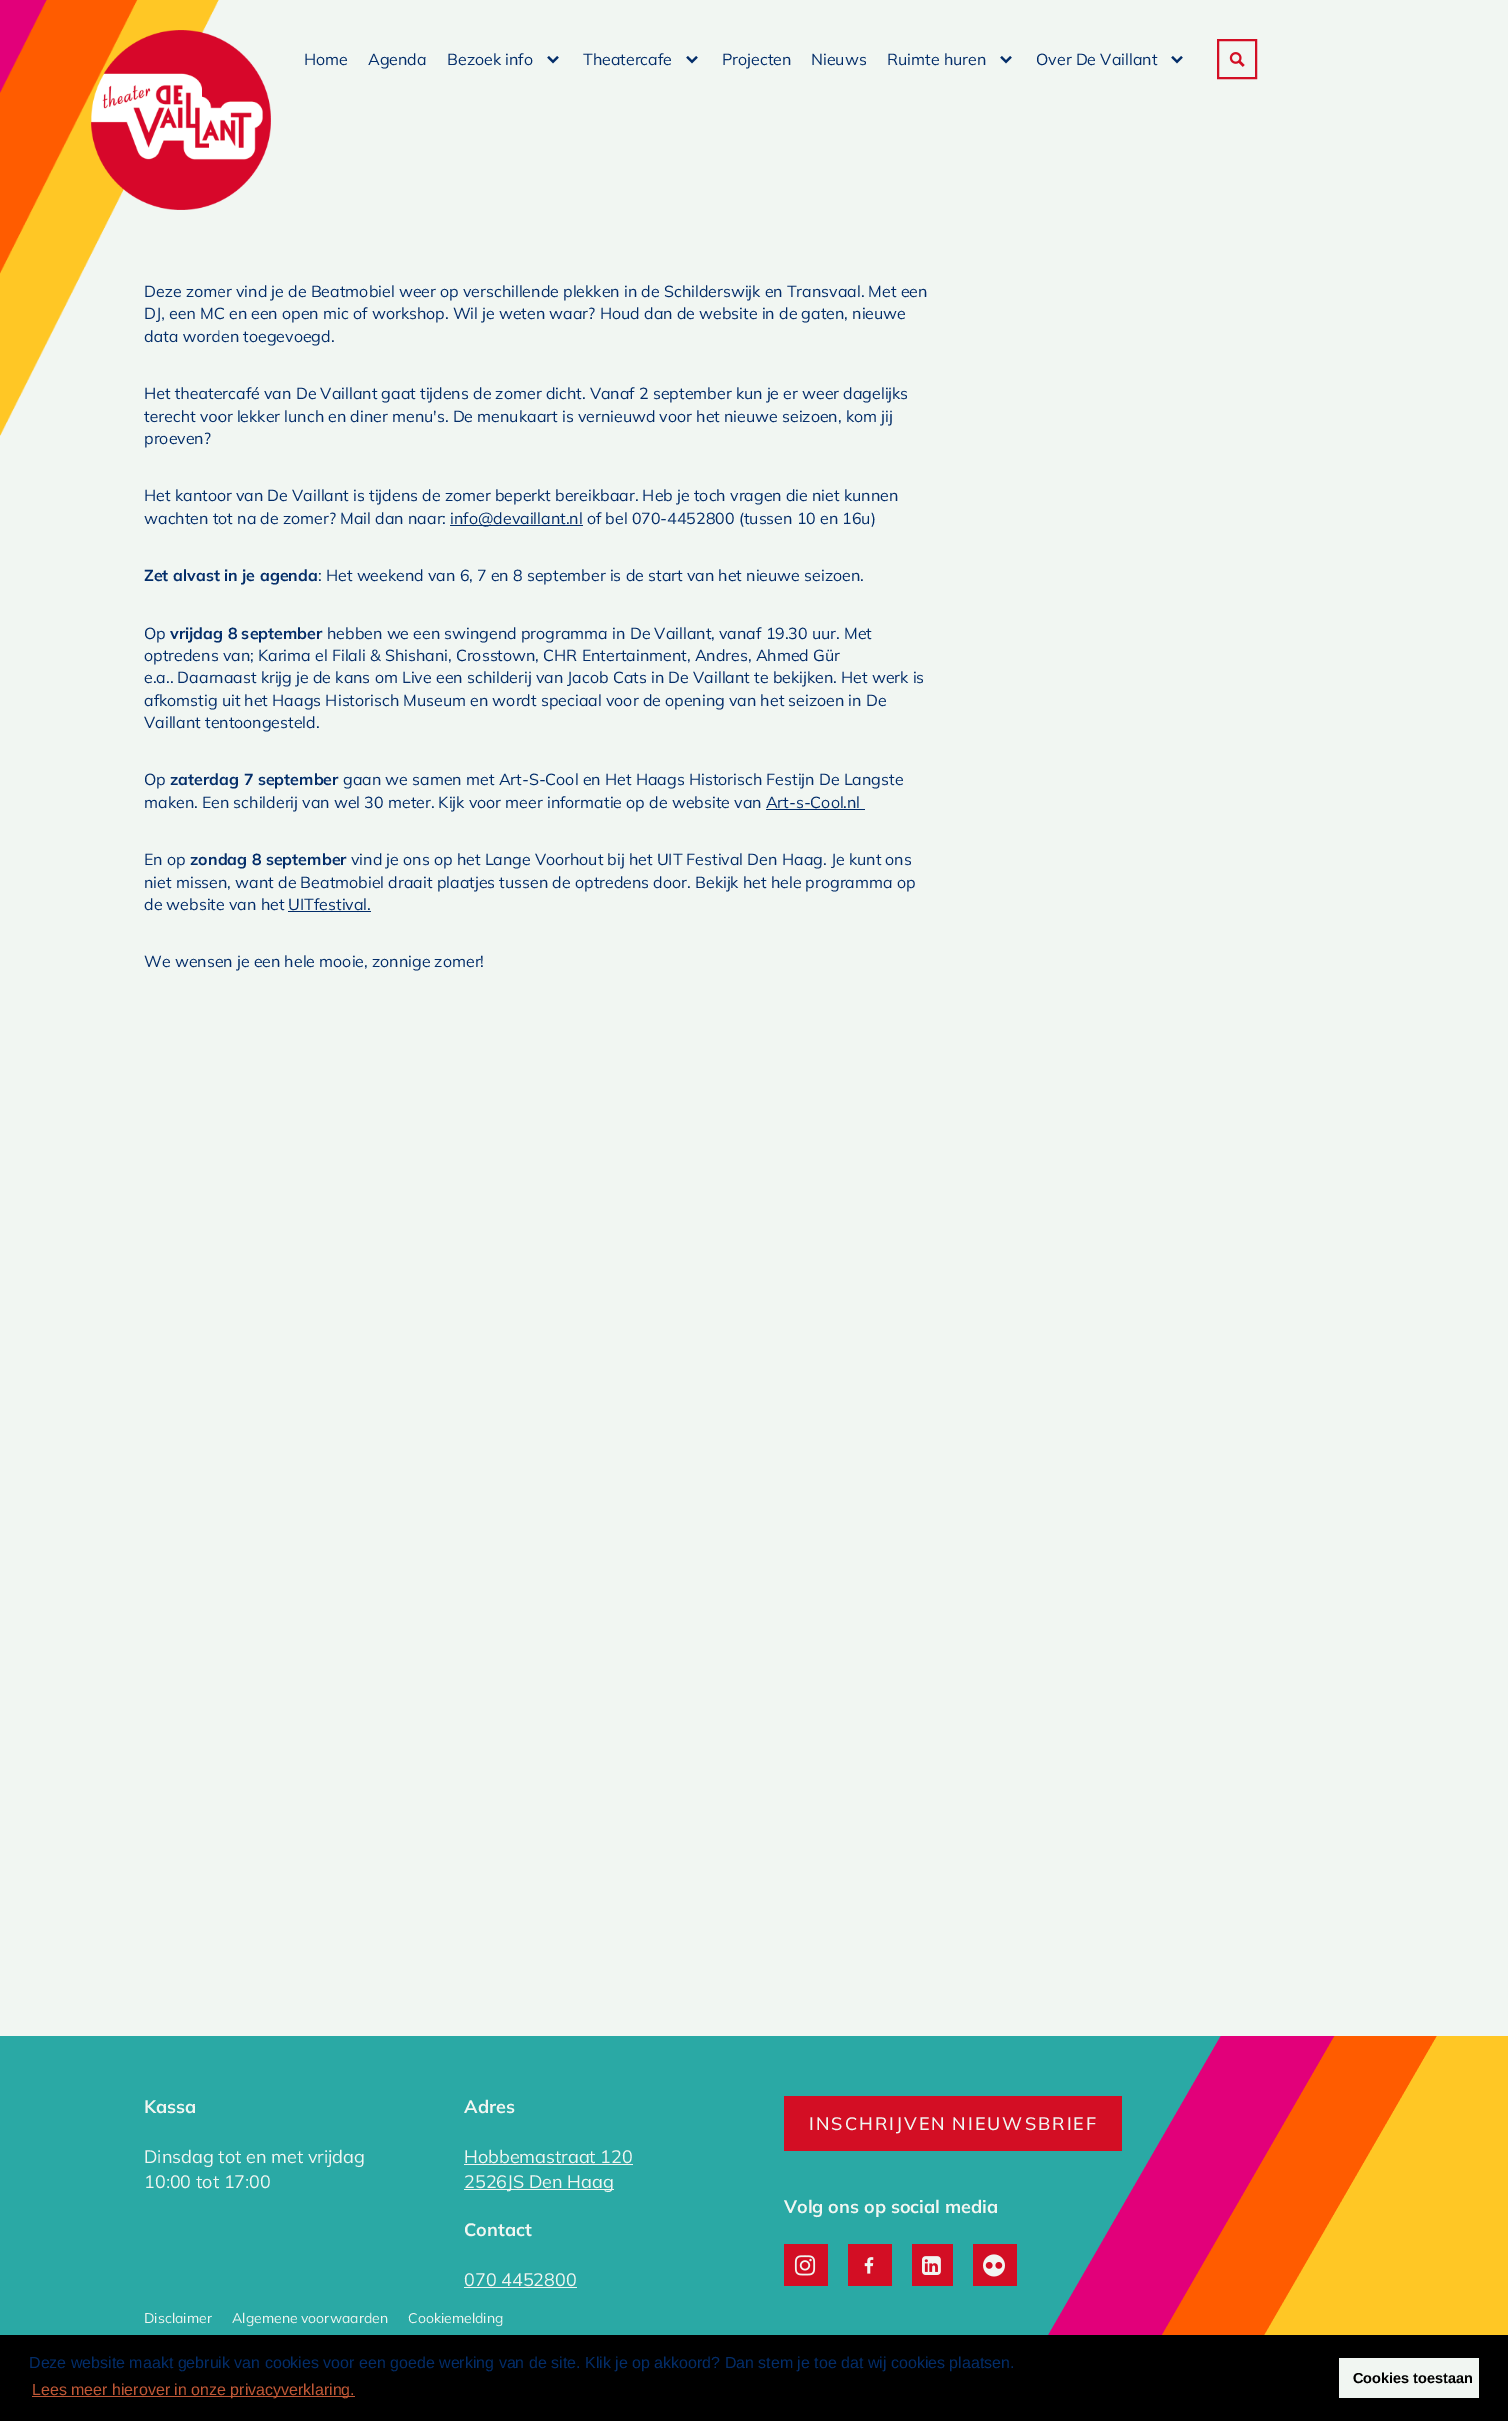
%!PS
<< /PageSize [1508 2421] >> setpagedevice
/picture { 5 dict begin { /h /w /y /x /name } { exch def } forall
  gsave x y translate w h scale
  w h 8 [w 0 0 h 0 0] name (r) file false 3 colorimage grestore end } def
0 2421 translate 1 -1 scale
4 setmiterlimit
0.945 0.965 0.949 setrgbcolor
0 0 1508 2421 rectfill
/Mulish-Regular [16 0 0 -16 0 0] selectfont
0.012 0.176 0.412 setrgbcolor
144 297 moveto (Deze zomer vind je de Beatmobiel weer op verschillende plekken in de Schilderswijk en Transvaal. Met een) show
144 319 moveto (DJ, een MC en een open mic of workshop. Wil je weten waar? Houd dan de website in de gaten, nieuwe) show
144 342 moveto (data worden toegevoegd.) show
144 399 moveto (Het theatercafé van De Vaillant gaat tijdens de zomer dicht. Vanaf 2 september kun je er weer dagelijks) show
144 422 moveto (terecht voor lekker lunch en diner menu's. De menukaart is vernieuwd voor het nieuwe seizoen, kom jij) show
144 444 moveto (proeven?) show
(img1.rgb) 0 0 219 436 picture
(img2.rgb) 91 30 180 180 picture
304 65 moveto (Home) show
368 65 moveto (Agenda) show
447 65 moveto (Bezoek info) show
(img3.rgb) 547 56 12 8 picture
583 65 moveto (Theatercafe) show
(img3.rgb) 686 56 12 8 picture
722 65 moveto (Projecten) show
811 65 moveto (Nieuws) show
887 65 moveto (Ruimte huren) show
(img3.rgb) 1000 56 12 8 picture
1036 65 moveto (Over De Vaillant) show
(img3.rgb) 1171 56 12 8 picture
0.827 0.055 0.141 setrgbcolor
2 setlinewidth
1218 40 38 38 rectstroke
(img4.rgb) 1229 52 16 15 picture
0.012 0.176 0.412 setrgbcolor
144 501 moveto (Het kantoor van De Vaillant is tijdens de zomer beperkt bereikbaar. Heb je toch vragen die niet kunnen) show
144 524 moveto (wachten tot na de zomer? Mail dan naar:) show
450 525 133 1 rectfill
450 524 moveto (info@devaillant.nl of bel 070-4452800 \(tussen 10 en 16u\)) show
/Mulish-Bold [16 0 0 -16 0 0] selectfont
144 581 moveto (Zet alvast in je agenda) show
/Mulish-Regular [16 0 0 -16 0 0] selectfont
318 581 moveto (: Het weekend van 6, 7 en 8 september is de start van het nieuwe seizoen.) show
144 639 moveto (Op) show
/Mulish-Bold [16 0 0 -16 0 0] selectfont
170 639 moveto (vrijdag 8 september) show
/Mulish-Regular [16 0 0 -16 0 0] selectfont
327 639 moveto (hebben we een swingend programma in De Vaillant, vanaf 19.30 uur. Met) show
144 661 moveto (optredens van; Karima el Filali & Shishani, Crosstown, CHR Entertainment, Andres, Ahmed Gür) show
144 683 moveto (e.a.. Daarnaast krijg je de kans om Live een schilderij van Jacob Cats in De Vaillant te bekijken. Het werk is) show
144 706 moveto (afkomstig uit het Haags Historisch Museum en wordt speciaal voor de opening van het seizoen in De) show
144 728 moveto (Vaillant tentoongesteld.) show
144 785 moveto (Op) show
/Mulish-Bold [16 0 0 -16 0 0] selectfont
170 785 moveto (zaterdag 7 september) show
/Mulish-Regular [16 0 0 -16 0 0] selectfont
343 785 moveto (gaan we samen met Art-S-Cool en Het Haags Historisch Festijn De Langste) show
144 808 moveto (maken. Een schilderij van wel 30 meter. Kijk voor meer informatie op de website van Art-s-Cool.nl) show
766 809 99 1 rectfill
144 865 moveto (En op) show
/Mulish-Bold [16 0 0 -16 0 0] selectfont
190 865 moveto (zondag 8 september) show
/Mulish-Regular [16 0 0 -16 0 0] selectfont
351 865 moveto (vind je ons op het Lange Voorhout bij het UIT Festival Den Haag. Je kunt ons) show
144 888 moveto (niet missen, want de Beatmobiel draait plaatjes tussen de optredens door. Bekijk het hele programma op) show
144 910 moveto (de website van het UITfestival.) show
288 911 83 1 rectfill
144 967 moveto (We wensen je een hele mooie, zonnige zomer!) show
0.165 0.663 0.647 setrgbcolor
0 2036 1221 299 rectfill
/Mulish-Bold [18 0 0 -18 0 0] selectfont
0.945 0.965 0.949 setrgbcolor
144 2113 moveto (Kassa) show
/Mulish-Regular [18 0 0 -18 0 0] selectfont
144 2163 moveto (Dinsdag tot en met vrijdag) show
144 2188 moveto (10:00 tot 17:00) show
/Mulish-Bold [18 0 0 -18 0 0] selectfont
464 2113 moveto (Adres) show
/Mulish-Regular [18 0 0 -18 0 0] selectfont
464 2163 moveto (Hobbemastraat 120) show
464 2164 169 1 rectfill
464 2189 150 1 rectfill
464 2188 moveto (2526JS Den Haag) show
/Mulish-Bold [18 0 0 -18 0 0] selectfont
464 2236 moveto (Contact) show
/Mulish-Regular [18 0 0 -18 0 0] selectfont
464 2286 moveto (070 4452800) show
464 2287 113 1 rectfill
(img9.rgb) 1048 2036 460 299 picture
0.827 0.055 0.141 setrgbcolor
784 2096 338 55 rectfill
/Mulish-Medium [18 0 0 -18 0 0] selectfont
0.945 0.965 0.949 setrgbcolor
809 2130 moveto -1 0 32 2 0 (INSCHRIJVEN NIEUWSBRIEF) awidthshow
/Mulish-Bold [18 0 0 -18 0 0] selectfont
784 2213 moveto (Volg ons op social media) show
0.827 0.055 0.141 setrgbcolor
784 2244 44 42 rectfill
(img5.rgb) 794 2255 22 21 picture
848 2244 44 42 rectfill
(img6.rgb) 864 2257 10 17 picture
912 2244 41 42 rectfill
(img7.rgb) 922 2256 19 19 picture
973 2244 44 42 rectfill
(img8.rgb) 983 2254 22 23 picture
/Mulish-Regular [14 0 0 -14 0 0] selectfont
0.945 0.965 0.949 setrgbcolor
144 2323 moveto (Disclaimer) show
232 2323 moveto (Algemene voorwaarden) show
408 2323 moveto (Cookiemelding) show
0 setgray
0 2335 1508 86 rectfill
/LiberationSans-Regular [16 0 0 -16 0 0] selectfont
0.012 0.176 0.412 setrgbcolor
29 2368 moveto (Deze website maakt gebruik van cookies voor een goede werking van de site. Klik je op akkoord? Dan stem je toe dat wij cookies plaatsen.) show
0.757 0.345 0.212 setrgbcolor
32 2396 323 1 rectfill
32 2395 moveto (Lees meer hierover in onze privacyverklaring.) show
0.945 0.965 0.949 setrgbcolor
1339 2358 140 40 rectfill
/LiberationSans-Bold [14.5 0 0 -14.5 0 0] selectfont
0 setgray
1353 2383 moveto (Cookies toestaan) show
showpage
